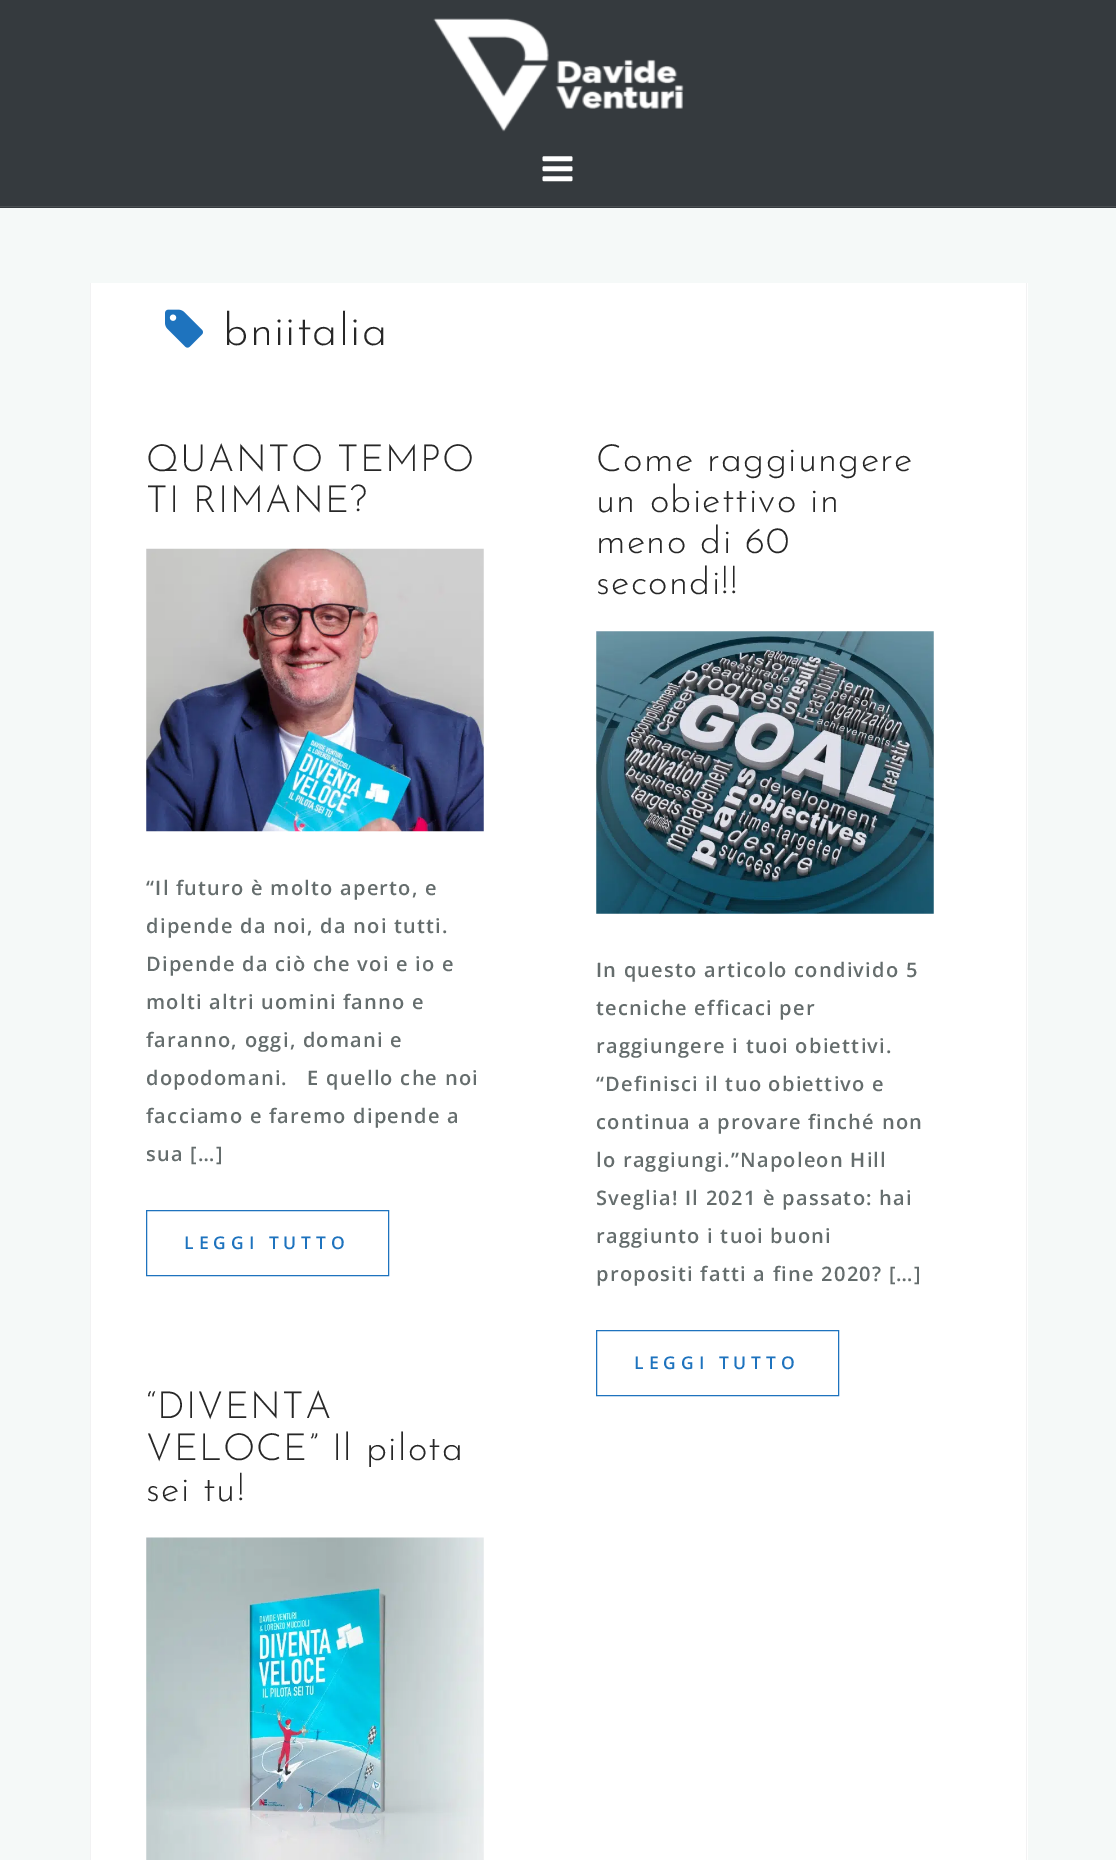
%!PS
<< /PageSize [1116 1860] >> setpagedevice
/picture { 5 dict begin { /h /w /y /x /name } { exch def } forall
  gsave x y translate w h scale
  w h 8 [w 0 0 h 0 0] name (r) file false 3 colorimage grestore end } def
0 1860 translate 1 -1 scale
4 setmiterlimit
0.961 0.976 0.973 setrgbcolor
0 0 1116 1860 rectfill
0.208 0.227 0.243 setrgbcolor
0 0 1116 208 rectfill
0.286 0.306 0.318 setrgbcolor
0 206 1116 1 rectfill
(img1.rgb) 433 18 251 114 picture
(img2.rgb) 542 156 31 26 picture
1 setgray
91 283 937 1577 rectfill
0.949 0.949 0.953 setrgbcolor
1026 283 1 1577 rectfill
90 283 1 1577 rectfill
(img3.rgb) 165 309 38 39 picture
/JosefinSans-Thin [45 0 0 -45 0 0] selectfont
0.153 setgray
223 345 moveto 1.25 0 (bniitalia) ashow
/JosefinSans-Thin [37.5 0 0 -37.5 0 0] selectfont
146 471 moveto 1.25 0 (QUANTO TEMPO) ashow
146 512 moveto 1.25 0 (TI RIMANE?) ashow
(img4.rgb) 146 548 338 284 picture
/OpenSans-SemiBold [20 0 0 -20 0 0] selectfont
0.396 0.427 0.427 setrgbcolor
146 895 moveto 1.25 0 (“Il futuro è molto aperto, e) ashow
146 933 moveto 1.25 0 (dipende da noi, da noi tutti.) ashow
146 971 moveto 1.25 0 (Dipende da ciò che voi e io e) ashow
146 1009 moveto 1.25 0 (molti altri uomini fanno e) ashow
146 1047 moveto 1.25 0 (faranno, oggi, domani e) ashow
146 1085 moveto 1.25 0 (dopodomani.   E quello che noi) ashow
146 1123 moveto 1.25 0 (facciamo e faremo dipende a) ashow
146 1161 moveto 1.25 0 (sua […]) ashow
0.118 0.451 0.745 setrgbcolor
146.5 1210.5 242 65 rectstroke
/OpenSans-SemiBold [17.5 0 0 -17.5 0 0] selectfont
184 1249 moveto 5 0 (LEGGI TUTTO) ashow
/JosefinSans-Thin [37.5 0 0 -37.5 0 0] selectfont
0.153 setgray
596 471 moveto 1.25 0 (Come raggiungere) ashow
596 512 moveto 1.25 0 (un obiettivo in) ashow
596 553 moveto 1.25 0 (meno di 60) ashow
596 594 moveto 1.25 0 (secondi!!) ashow
(img5.rgb) 596 631 338 283 picture
/OpenSans-SemiBold [20 0 0 -20 0 0] selectfont
0.396 0.427 0.427 setrgbcolor
596 977 moveto 1.25 0 (In questo articolo condivido 5) ashow
596 1015 moveto 1.25 0 (tecniche efficaci per) ashow
596 1053 moveto 1.25 0 (raggiungere i tuoi obiettivi.) ashow
596 1091 moveto 1.25 0 (“Definisci il tuo obiettivo e) ashow
596 1129 moveto 1.25 0 (continua a provare finché non) ashow
596 1167 moveto 1.25 0 (lo raggiungi.”Napoleon Hill) ashow
596 1205 moveto 1.25 0 (Sveglia! Il 2021 è passato: hai) ashow
596 1243 moveto 1.25 0 (raggiunto i tuoi buoni) ashow
596 1281 moveto 1.25 0 (propositi fatti a fine 2020? […]) ashow
0.118 0.451 0.745 setrgbcolor
596.5 1330.5 242 65 rectstroke
/OpenSans-SemiBold [17.5 0 0 -17.5 0 0] selectfont
634 1369 moveto 5 0 (LEGGI TUTTO) ashow
/JosefinSans-Thin [37.5 0 0 -37.5 0 0] selectfont
0.153 setgray
146 1418 moveto 1.25 0 (“DIVENTA) ashow
146 1460 moveto 1.25 0 (VELOCE” Il pilota) ashow
146 1501 moveto 1.25 0 (sei tu!) ashow
(img6.rgb) 146 1537 338 323 picture
showpage
